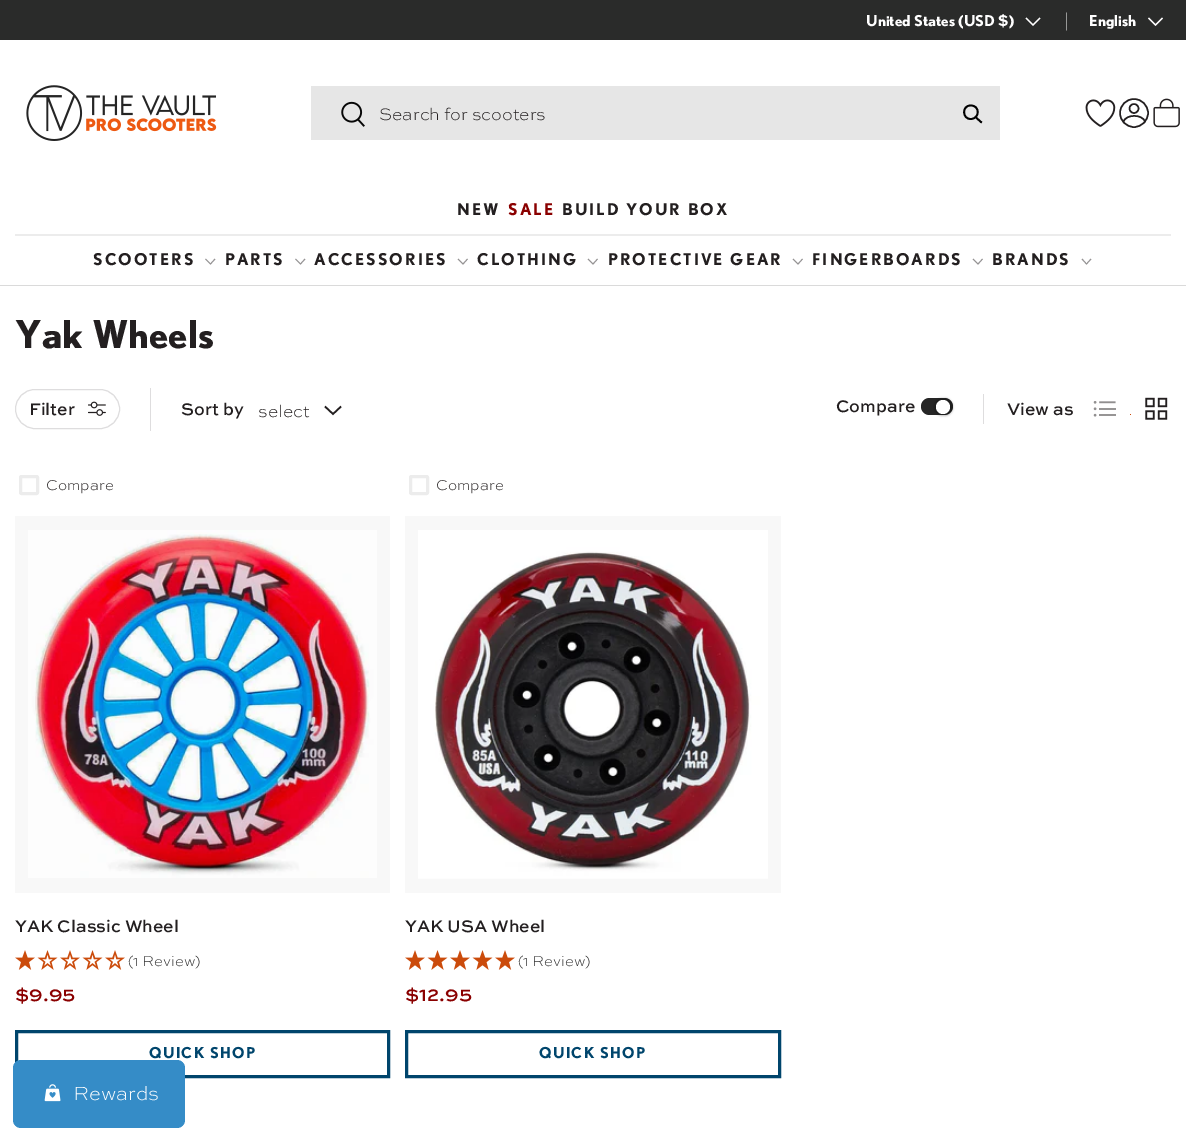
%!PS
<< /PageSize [1186 1140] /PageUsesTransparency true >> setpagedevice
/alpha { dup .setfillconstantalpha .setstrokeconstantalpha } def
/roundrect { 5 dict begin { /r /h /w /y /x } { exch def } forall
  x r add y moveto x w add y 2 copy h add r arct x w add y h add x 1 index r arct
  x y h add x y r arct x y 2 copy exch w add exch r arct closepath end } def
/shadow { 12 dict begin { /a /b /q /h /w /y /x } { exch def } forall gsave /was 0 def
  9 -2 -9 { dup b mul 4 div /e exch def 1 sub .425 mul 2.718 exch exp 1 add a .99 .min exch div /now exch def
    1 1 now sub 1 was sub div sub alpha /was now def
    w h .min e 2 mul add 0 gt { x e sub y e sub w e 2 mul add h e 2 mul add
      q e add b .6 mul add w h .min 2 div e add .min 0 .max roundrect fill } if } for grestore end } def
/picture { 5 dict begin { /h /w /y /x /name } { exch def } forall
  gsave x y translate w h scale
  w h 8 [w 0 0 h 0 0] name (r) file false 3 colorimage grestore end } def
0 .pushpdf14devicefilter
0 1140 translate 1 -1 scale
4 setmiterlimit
1 setgray
0 0 1186 1140 rectfill
0.165 0.169 0.165 setrgbcolor
0 0 1186 40 rectfill
/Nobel-Bold [15 0 0 -15 0 0] selectfont
1 setgray
866 26 moveto (United States \(USD $\)) show
1.4 setlinewidth
newpath 1040 18 moveto 1033 25 lineto 1026 18 lineto stroke
/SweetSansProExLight-Light [15 0 0 -15 0 0] selectfont
0.749 setgray
1064 26 moveto (|) show
/Nobel-Bold [15 0 0 -15 0 0] selectfont
1 setgray
1089 26 moveto (English) show
newpath 1162.5 18 moveto 1155.5 25 lineto 1148.5 18 lineto stroke
0.855 setgray
0 285 1186 1 rectfill
(img1.rgb) 26 85 191 56 picture
0.902 setgray
311 86 689 54 rectfill
(img2.rgb) 341 101 24 26 picture
/SweetSansProExLight-Light [17.5 0 0 -17.5 0 0] selectfont
0.137 0.122 0.125 setrgbcolor
379 120 moveto (Search for scooters) show
0 setgray
1.8 setlinewidth
2 setlinecap
newpath 971 105.5 moveto 961.5 105 962 119.5 971 119 curveto 980 118.5 980 105.5 971 105.5 curveto closepath 976 117.5 moveto 981 122 lineto stroke
(img3.rgb) 1085 99 31 28 picture
0.137 0.122 0.125 setrgbcolor
1.5 setlinewidth
0 setlinecap
newpath 1134 113 14 0 360 arc closepath stroke
newpath 1134 108.5 4.5 0 360 arc closepath stroke
2 setlinecap
newpath 1123.5 121.5 moveto 1126.5 114 1142 114 1145 121.5 curveto stroke
(img4.rgb) 1153 98 27 30 picture
0.925 setgray
15 234 1156 2 rectfill
/Nobel-Bold [16.25 0 0 -16.25 0 0] selectfont
0.137 0.122 0.125 setrgbcolor
457 215 moveto 2 0 (NEW) ashow
0.541 0 0 setrgbcolor
508 215 moveto 2 0 (SALE) ashow
0.137 0.122 0.125 setrgbcolor
562 215 moveto 2 0 (BUILD YOUR BOX) ashow
93 265 moveto 2 0 (SCOOTERS) ashow
0.584 0.576 0.58 setrgbcolor
0.9 setlinewidth
0 setlinecap
newpath 215 259 moveto 210.5 264 lineto 205.5 259 lineto stroke
0.137 0.122 0.125 setrgbcolor
225 265 moveto 2 0 (PARTS) ashow
0.584 0.576 0.58 setrgbcolor
newpath 305 259 moveto 300.5 264 lineto 295.5 259 lineto stroke
0.137 0.122 0.125 setrgbcolor
314 265 moveto 2 0 (ACCESSORIES) ashow
0.584 0.576 0.58 setrgbcolor
newpath 467.5 259 moveto 463 264 lineto 458 259 lineto stroke
0.137 0.122 0.125 setrgbcolor
477 265 moveto 2 0 (CLOTHING) ashow
0.584 0.576 0.58 setrgbcolor
newpath 597.5 259 moveto 593 264 lineto 588 259 lineto stroke
0.137 0.122 0.125 setrgbcolor
608 265 moveto 2 0 (PROTECTIVE GEAR) ashow
0.584 0.576 0.58 setrgbcolor
newpath 802.5 259 moveto 798 264 lineto 793 259 lineto stroke
0.137 0.122 0.125 setrgbcolor
812 265 moveto 2 0 (FINGERBOARDS) ashow
0.584 0.576 0.58 setrgbcolor
newpath 982.5 259 moveto 978 264 lineto 973 259 lineto stroke
0.137 0.122 0.125 setrgbcolor
992 265 moveto 2 0 (BRANDS) ashow
0.584 0.576 0.58 setrgbcolor
newpath 1091 259 moveto 1086.5 264 lineto 1082 259 lineto stroke
/Nobel-Bold [38.5 0 0 -38.5 0 0] selectfont
0.137 0.122 0.125 setrgbcolor
15 348 moveto (Yak Wheels) show
0.871 0.867 0.871 setrgbcolor
1 setlinewidth
15.5 389.5 104 39 19.5 roundrect stroke
/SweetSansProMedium-Medium [17.5 0 0 -17.5 0 0] selectfont
0.137 0.122 0.125 setrgbcolor
29 415 moveto (Filter) show
(img5.rgb) 88 401 18 15 picture
0.871 0.867 0.871 setrgbcolor
150 388 1 43 rectfill
0.137 0.122 0.125 setrgbcolor
181 415 moveto (Sort by) show
/SweetSansProExLight-Light [17.5 0 0 -17.5 0 0] selectfont
258 417 moveto (select) show
1.6 setlinewidth
newpath 341 406.5 moveto 333 414 lineto 325 406.5 lineto stroke
0.149 setgray
921 398 32 17 8.5 roundrect fill
0 setgray
934 398 19 18 9 1 0.25 shadow
1 setgray
newpath 943 407 7 0 360 arc closepath fill
/SweetSansProMedium-Medium [17.5 0 0 -17.5 0 0] selectfont
0.137 0.122 0.125 setrgbcolor
836 412 moveto (Compare) show
0.871 0.867 0.871 setrgbcolor
983 394 1 30 rectfill
0.137 0.122 0.125 setrgbcolor
1007 415 moveto (View as) show
(img6.rgb) 1093 401 23 16 picture
gsave
1130 414 1 1 0.5 roundrect clip newpath
0.796 0.294 0.043 setrgbcolor
1125 408 11 12 5.5 roundrect fill
grestore
(img7.rgb) 1145 397 23 23 picture
0.925 setgray
3 setlinewidth
20.5 476.5 17 17 1 roundrect stroke
/SweetSansProExLight-Light [15 0 0 -15 0 0] selectfont
0.137 0.122 0.125 setrgbcolor
46 490 moveto (Compare) show
0.973 setgray
15 516 375 377 rectfill
(img8.rgb) 28 530 349 348 picture
/SweetSansProMedium-Medium [17.5 0 0 -17.5 0 0] selectfont
0.137 0.122 0.125 setrgbcolor
15 932 moveto (YAK Classic Wheel) show
(img9.rgb) 15 950 20 20 picture
(img10.rgb) 37 950 21 20 picture
(img11.rgb) 60 950 20 20 picture
(img10.rgb) 82 950 21 20 picture
(img11.rgb) 105 950 20 20 picture
/SweetSansProExLight-Light [15 0 0 -15 0 0] selectfont
0.2 setgray
128 966 moveto (\(1 Review\)) show
/SweetSansProMedium-Medium [20 0 0 -20 0 0] selectfont
0.541 0 0 setrgbcolor
15 1001 moveto ($9.95) show
0 0.271 0.424 setrgbcolor
16.5 1031.5 372 45 rectstroke
/Nobel-Bold [15 0 0 -15 0 0] selectfont
149 1058 moveto 1.25 0 (QUICK SHOP) ashow
0.925 setgray
410.5 476.5 17 17 1 roundrect stroke
/SweetSansProExLight-Light [15 0 0 -15 0 0] selectfont
0.137 0.122 0.125 setrgbcolor
436 490 moveto (Compare) show
0.973 setgray
405 516 376 377 rectfill
(img12.rgb) 418 530 350 349 picture
/SweetSansProMedium-Medium [17.5 0 0 -17.5 0 0] selectfont
0.137 0.122 0.125 setrgbcolor
405 932 moveto (YAK USA Wheel) show
(img9.rgb) 405 950 20 20 picture
(img13.rgb) 427 950 21 20 picture
(img9.rgb) 450 950 20 20 picture
(img13.rgb) 472 950 21 20 picture
(img9.rgb) 495 950 20 20 picture
/SweetSansProExLight-Light [15 0 0 -15 0 0] selectfont
0.2 setgray
518 966 moveto (\(1 Review\)) show
/SweetSansProMedium-Medium [20 0 0 -20 0 0] selectfont
0.541 0 0 setrgbcolor
405 1001 moveto ($12.95) show
0 0.271 0.424 setrgbcolor
406.5 1031.5 373 45 rectstroke
/Nobel-Bold [15 0 0 -15 0 0] selectfont
539 1058 moveto 1.25 0 (QUICK SHOP) ashow
0.208 0.549 0.78 setrgbcolor
13 1060 172 68 8 roundrect fill
(img14.rgb) 44 1084 17 18 picture
/SweetSansProExLight-Light [20 0 0 -20 0 0] selectfont
1 setgray
73 1100 moveto (Rewards) show
.poppdf14devicefilter showpage
